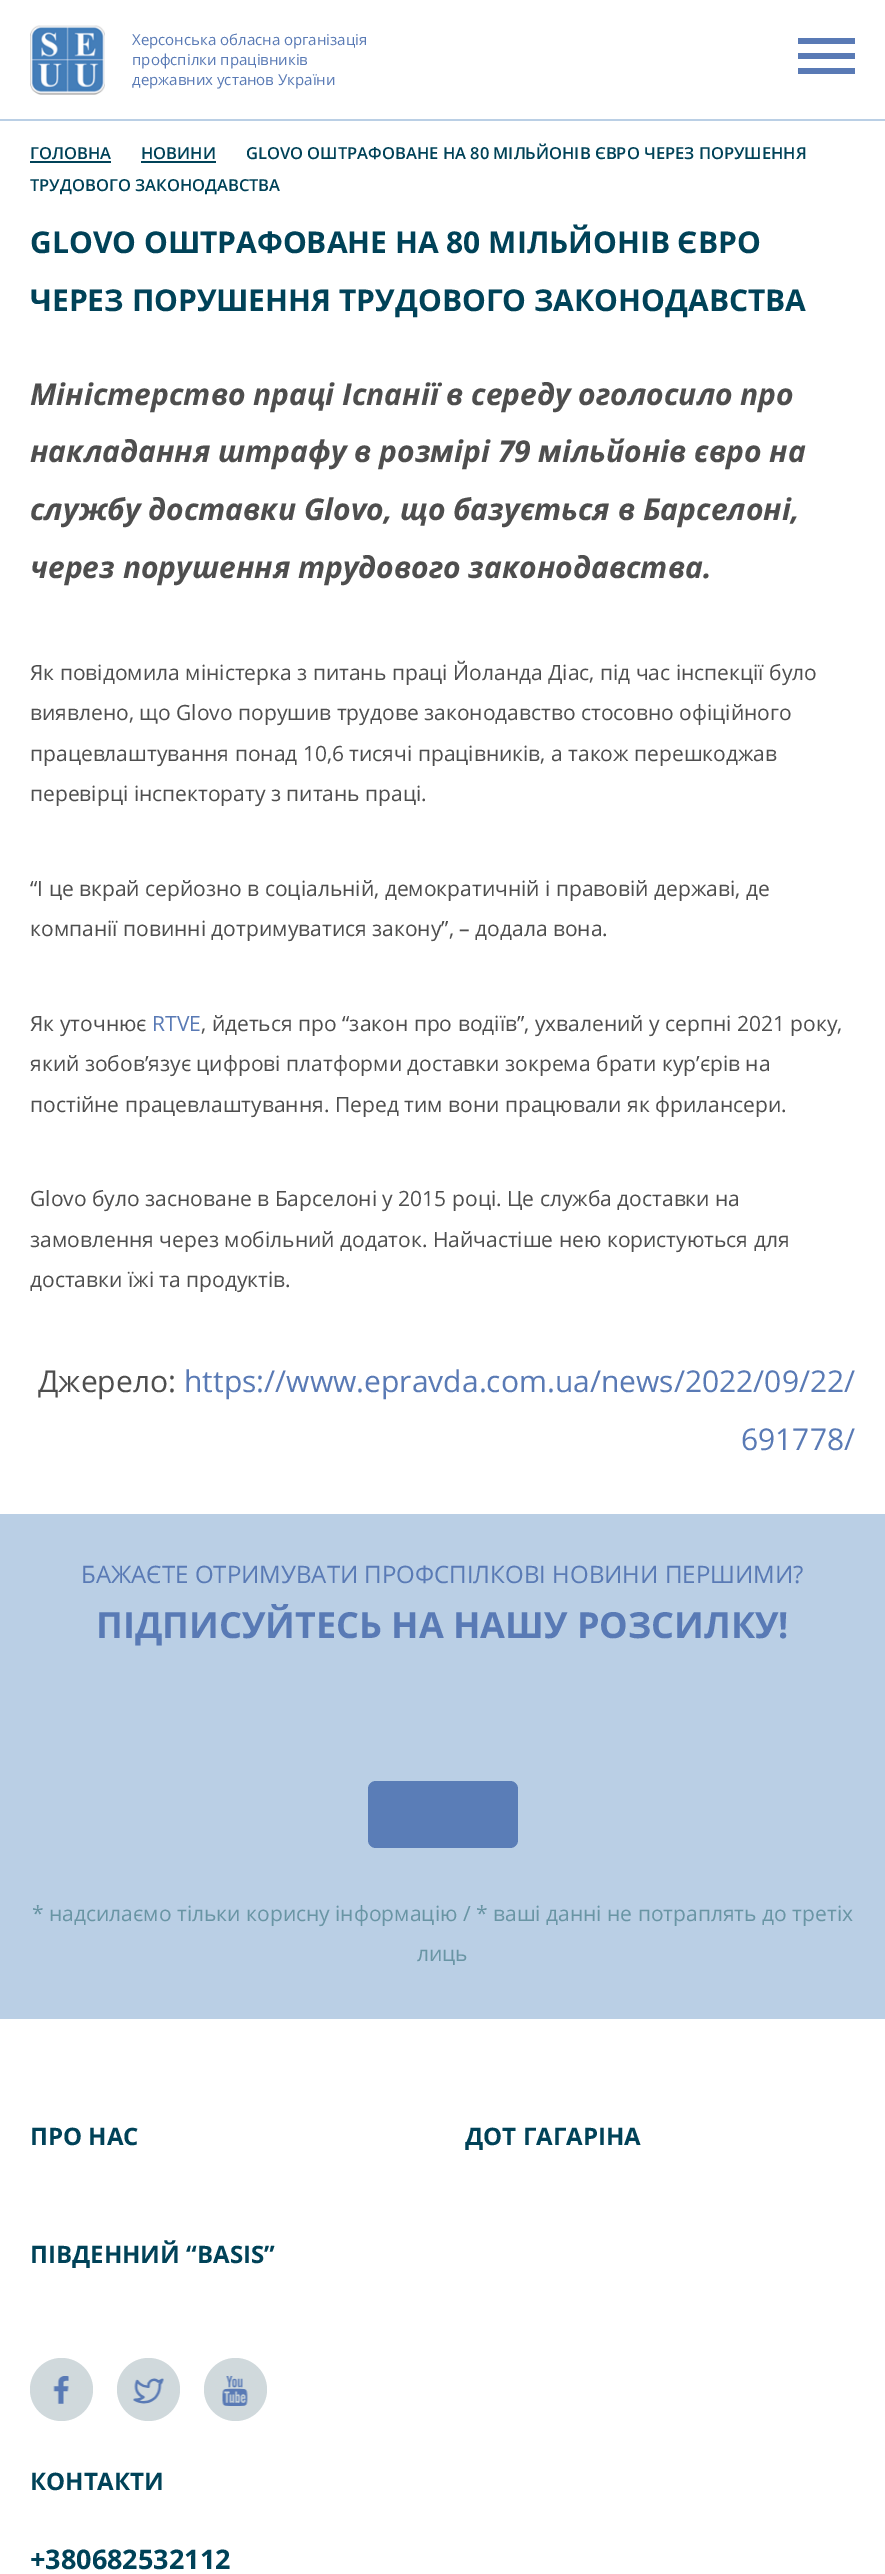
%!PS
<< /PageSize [885 2574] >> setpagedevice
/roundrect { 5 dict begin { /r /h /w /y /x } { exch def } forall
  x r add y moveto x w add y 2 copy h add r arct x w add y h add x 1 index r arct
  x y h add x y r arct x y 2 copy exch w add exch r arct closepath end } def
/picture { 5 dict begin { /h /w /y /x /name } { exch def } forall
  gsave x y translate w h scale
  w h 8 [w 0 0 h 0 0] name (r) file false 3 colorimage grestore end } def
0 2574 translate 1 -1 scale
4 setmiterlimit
1 setgray
0 0 885 2574 rectfill
(img1.rgb) 30 25 75 70 picture
/OpenSans-Regular [15 0 0 -15 0 0] selectfont
0.349 0.478 0.71 setrgbcolor
132 45 moveto (Херсонська обласна організація) show
132 65 moveto (профспілки працівників) show
132 85 moveto (державних установ України) show
798 38 57 6 rectfill
798 53 57 6 rectfill
798 68 57 6 rectfill
0.729 0.812 0.898 setrgbcolor
0 119 885 2 rectfill
/OpenSans-SemiBold [16.5 0 0 -16.5 0 0] selectfont
0 0.259 0.345 setrgbcolor
30 159 moveto (ГОЛОВНА) show
30 161 81 2 rectfill
141 159 moveto (НОВИНИ) show
141 161 75 2 rectfill
246 159 moveto (GLOVO ОШТРАФОВАНЕ НА 80 МІЛЬЙОНІВ ЄВРО ЧЕРЕЗ ПОРУШЕННЯ) show
30 191 moveto (ТРУДОВОГО ЗАКОНОДАВСТВА) show
/OpenSans-Bold [30 0 0 -30 0 0] selectfont
30 253 moveto (GLOVO ОШТРАФОВАНЕ НА 80 МІЛЬЙОНІВ ЄВРО) show
30 311 moveto (ЧЕРЕЗ ПОРУШЕННЯ ТРУДОВОГО ЗАКОНОДАВСТВА) show
/OpenSans-BoldItalic [30 0 0 -30 0 0] selectfont
0.306 setgray
30 405 moveto (Міністерство праці Іспанії в середу оголосило про) show
30 462 moveto (накладання штрафу в розмірі 79 мільйонів євро на) show
30 520 moveto (службу доставки Glovo, що базується в Барселоні,) show
30 578 moveto (через порушення трудового законодавства.) show
/OpenSans-Regular [21 0 0 -21 0 0] selectfont
30 680 moveto (Як повідомила міністерка з питань праці Йоланда Діас, під час інспекції було) show
30 720 moveto (виявлено, що Glovo порушив трудове законодавство стосовно офіційного) show
30 761 moveto (працевлаштування понад 10,6 тисячі працівників, а також перешкоджав) show
30 801 moveto (перевірці інспекторату з питань праці.) show
30 896 moveto (“І це вкрай серйозно в соціальній, демократичній і правовій державі, де) show
30 936 moveto (компанії повинні дотримуватися закону”, – додала вона.) show
30 1031 moveto (Як уточнює) show
0.349 0.478 0.71 setrgbcolor
152 1031 moveto (RTVE) show
0.306 setgray
201 1031 moveto (, йдеться про “закон про водіїв”, ухвалений у серпні 2021 року,) show
30 1071 moveto (який зобов’язує цифрові платформи доставки зокрема брати кур’єрів на) show
30 1112 moveto (постійне працевлаштування. Перед тим вони працювали як фрилансери.) show
30 1206 moveto (Glovo було засноване в Барселоні у 2015 році. Це служба доставки на) show
30 1247 moveto (замовлення через мобільний додаток. Найчастіше нею користуються для) show
30 1287 moveto (доставки їжі та продуктів.) show
/OpenSans-Regular [30 0 0 -30 0 0] selectfont
38 1392 moveto (Джерело:) show
0.349 0.478 0.71 setrgbcolor
184 1392 moveto (https://www.epravda.com.ua/news/2022/09/22/) show
741 1450 moveto (691778/) show
0.729 0.812 0.898 setrgbcolor
0 1514 885 505 rectfill
/OpenSans-Regular [24 0 0 -24 0 0] selectfont
0.349 0.478 0.71 setrgbcolor
81 1583 moveto (БАЖАЄТЕ ОТРИМУВАТИ ПРОФСПІЛКОВІ НОВИНИ ПЕРШИМИ?) show
/OpenSans-Bold [36 0 0 -36 0 0] selectfont
96 1638 moveto (ПІДПИСУЙТЕСЬ НА НАШУ РОЗСИЛКУ!) show
0.353 0.49 0.718 setrgbcolor
368 1781 150 67 8 roundrect fill
/OpenSans-Regular [21 0 0 -21 0 0] selectfont
0.412 0.584 0.643 setrgbcolor
32 1921 moveto (* надсилаємо тільки корисну інформацію / * ваші данні не потраплять до третіх) show
417 1961 moveto (лиць) show
/OpenSans-Bold [24 0 0 -24 0 0] selectfont
0 0.259 0.345 setrgbcolor
30 2145 moveto (ПРО НАС) show
465 2145 moveto (ДОТ ГАГАРІНА) show
30 2263 moveto (ПІВДЕННИЙ “BASIS”) show
0.816 0.851 0.863 setrgbcolor
newpath 61.5 2389.5 31.5 0 360 arc closepath fill
(img2.rgb) 53 2376 16 28 picture
newpath 148.5 2389.5 31.5 0 360 arc closepath fill
(img3.rgb) 133 2378 31 26 picture
newpath 235.5 2389.5 31.5 0 360 arc closepath fill
(img4.rgb) 222 2376 26 30 picture
0 0.259 0.345 setrgbcolor
30 2490 moveto (КОНТАКТИ) show
/OpenSans-Bold [27 0 0 -27 0 0] selectfont
30 2569 moveto (+380682532112) show
showpage
